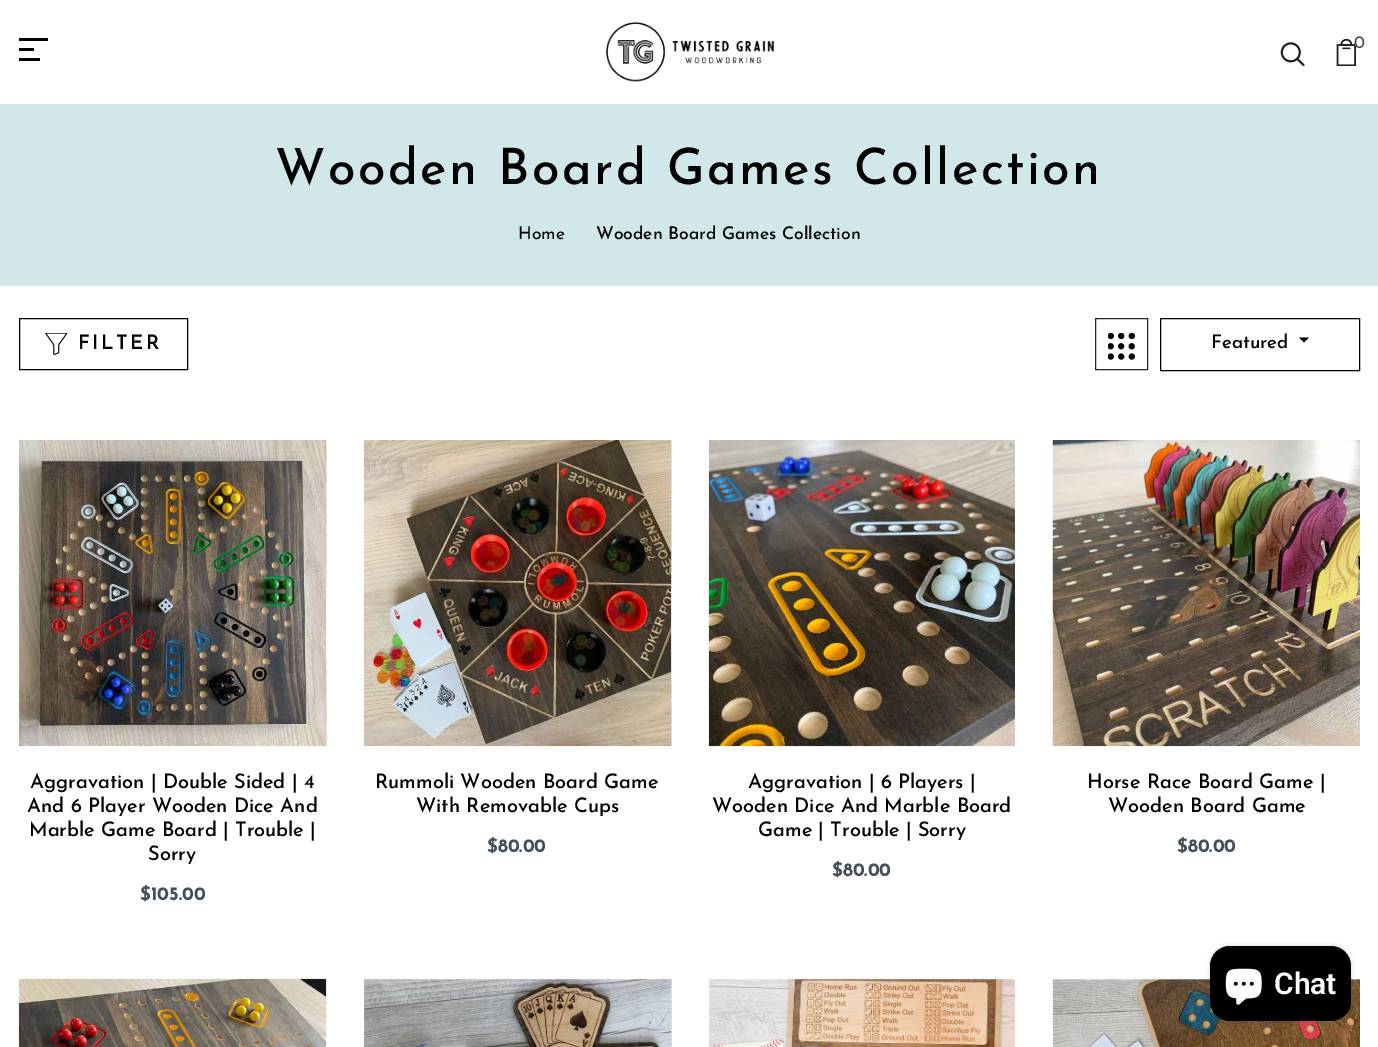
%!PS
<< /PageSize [1378 1047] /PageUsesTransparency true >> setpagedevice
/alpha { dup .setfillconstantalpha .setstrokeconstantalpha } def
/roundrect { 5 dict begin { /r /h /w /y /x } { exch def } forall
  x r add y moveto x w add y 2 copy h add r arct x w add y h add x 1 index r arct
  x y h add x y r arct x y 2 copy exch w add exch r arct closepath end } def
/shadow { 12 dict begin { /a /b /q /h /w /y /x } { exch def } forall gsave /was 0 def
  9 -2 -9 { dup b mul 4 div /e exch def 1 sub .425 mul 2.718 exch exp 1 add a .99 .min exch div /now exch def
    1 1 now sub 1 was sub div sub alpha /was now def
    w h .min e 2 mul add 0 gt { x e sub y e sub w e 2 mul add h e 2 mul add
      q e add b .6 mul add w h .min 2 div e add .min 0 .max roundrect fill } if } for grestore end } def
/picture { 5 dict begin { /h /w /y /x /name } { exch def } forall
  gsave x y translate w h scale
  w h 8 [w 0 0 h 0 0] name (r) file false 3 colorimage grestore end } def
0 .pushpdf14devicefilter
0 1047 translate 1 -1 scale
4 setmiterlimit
1 setgray
0 0 1378 1047 rectfill
0 setgray
19 38 29 3 rectfill
19 48 15 3 rectfill
19 58 21 3 rectfill
(img1.rgb) 606 22 168 60 picture
(img2.rgb) 1280 42 25 25 picture
(img3.rgb) 1336 39 20 27 picture
/JosefinSans-Regular [17.5 0 0 -17.5 0 0] selectfont
0.267 0.31 0.353 setrgbcolor
1354 48 moveto (0) show
0.82 0.906 0.918 setrgbcolor
0 104 1378 182 rectfill
/JosefinSans-Medium [50 0 0 -50 0 0] selectfont
0 setgray
275 184 moveto 2.5 0 (Wooden Board Games Collection) ashow
/JosefinSans-Regular [17.5 0 0 -17.5 0 0] selectfont
518 239 moveto (Home) show
/JosefinSans-Medium [17.5 0 0 -17.5 0 0] selectfont
596 239 moveto (Wooden Board Games Collection) show
19.5 318.5 168 51 rectstroke
(img4.rgb) 45 333 23 22 picture
/JosefinSans-SemiBold [20 0 0 -20 0 0] selectfont
78 349 moveto 2.5 0 (FILTER) ashow
0.137 0.145 0.161 setrgbcolor
1095.5 318.5 52 51 rectstroke
(img5.rgb) 1108 333 27 27 picture
0 setgray
1160.5 318.5 199 52 rectstroke
/JosefinSans-Medium [18.75 0 0 -18.75 0 0] selectfont
1211 348 moveto (Featured) show
newpath 1299 337.5 moveto 1309 337.5 lineto 1304 342.5 lineto closepath fill
(img6.rgb) 18 440 309 307 picture
(img7.rgb) 326 440 1 306 picture
/JosefinSans-Medium [20 0 0 -20 0 0] selectfont
30 788 moveto (Aggravation | Double Sided | 4) show
27 812 moveto (And 6 Player Wooden Dice And) show
29 836 moveto (Marble Game Board | Trouble |) show
148 860 moveto (Sorry) show
/JosefinSans-Bold [18.75 0 0 -18.75 0 0] selectfont
0.267 0.31 0.353 setrgbcolor
140 900 moveto ($105.00) show
(img8.rgb) 363 440 309 307 picture
(img9.rgb) 671 440 1 306 picture
/JosefinSans-Medium [20 0 0 -20 0 0] selectfont
0 setgray
375 788 moveto (Rummoli Wooden Board Game) show
416 812 moveto (With Removable Cups) show
/JosefinSans-Bold [18.75 0 0 -18.75 0 0] selectfont
0.267 0.31 0.353 setrgbcolor
487 852 moveto ($80.00) show
(img10.rgb) 708 440 307 307 picture
/JosefinSans-Medium [20 0 0 -20 0 0] selectfont
0 setgray
748 788 moveto (Aggravation | 6 Players |) show
712 812 moveto (Wooden Dice And Marble Board) show
758 836 moveto (Game | Trouble | Sorry) show
/JosefinSans-Bold [18.75 0 0 -18.75 0 0] selectfont
0.267 0.31 0.353 setrgbcolor
832 876 moveto ($80.00) show
(img11.rgb) 1052 440 308 307 picture
/JosefinSans-Medium [20 0 0 -20 0 0] selectfont
0 setgray
1087 788 moveto (Horse Race Board Game |) show
1108 812 moveto (Wooden Board Game) show
/JosefinSans-Bold [18.75 0 0 -18.75 0 0] selectfont
0.267 0.31 0.353 setrgbcolor
1177 852 moveto ($80.00) show
(img12.rgb) 18 978 309 69 picture
(img13.rgb) 326 979 1 68 picture
(img14.rgb) 363 978 309 69 picture
(img15.rgb) 671 979 1 68 picture
(img16.rgb) 709 978 306 69 picture
(img17.rgb) 1052 979 308 68 picture
0 setgray
1210 946 141 75 20 3 0.15 shadow
1210 946 141 75 20 roundrect fill
(img18.rgb) 1225 968 37 37 picture
/Roboto-SemiBold [30 0 0 -30 0 0] selectfont
1 setgray
1274 994 moveto (Chat) show
.poppdf14devicefilter showpage
